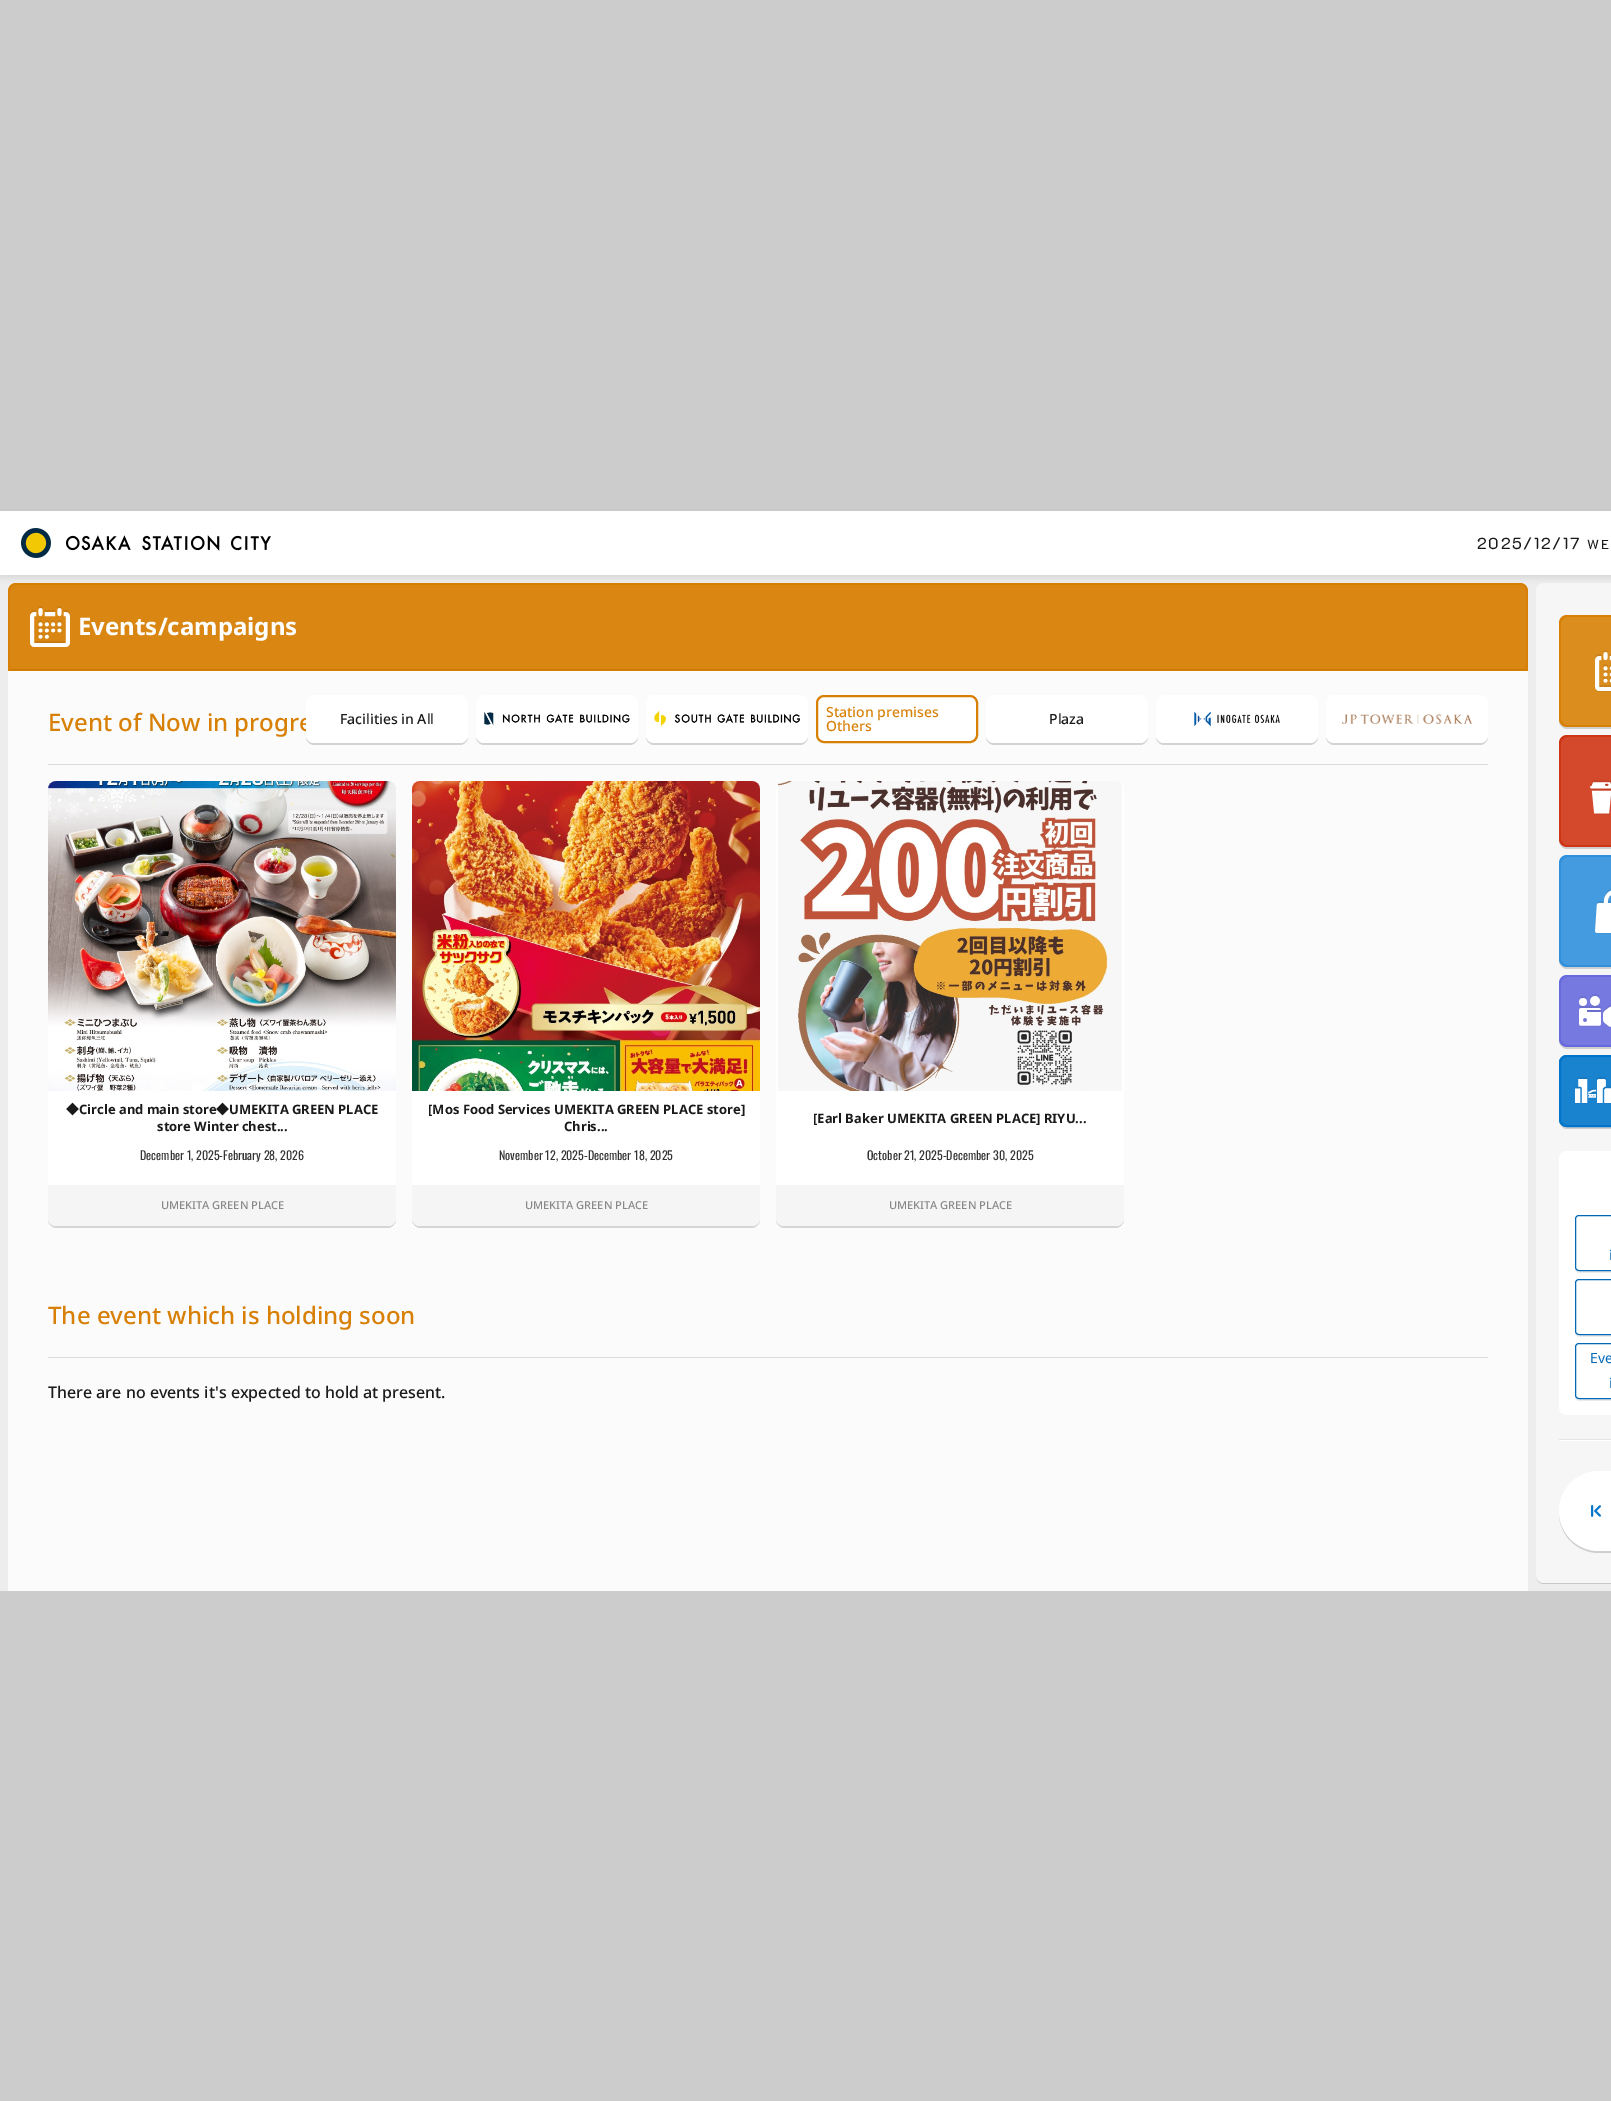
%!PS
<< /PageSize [1611 2101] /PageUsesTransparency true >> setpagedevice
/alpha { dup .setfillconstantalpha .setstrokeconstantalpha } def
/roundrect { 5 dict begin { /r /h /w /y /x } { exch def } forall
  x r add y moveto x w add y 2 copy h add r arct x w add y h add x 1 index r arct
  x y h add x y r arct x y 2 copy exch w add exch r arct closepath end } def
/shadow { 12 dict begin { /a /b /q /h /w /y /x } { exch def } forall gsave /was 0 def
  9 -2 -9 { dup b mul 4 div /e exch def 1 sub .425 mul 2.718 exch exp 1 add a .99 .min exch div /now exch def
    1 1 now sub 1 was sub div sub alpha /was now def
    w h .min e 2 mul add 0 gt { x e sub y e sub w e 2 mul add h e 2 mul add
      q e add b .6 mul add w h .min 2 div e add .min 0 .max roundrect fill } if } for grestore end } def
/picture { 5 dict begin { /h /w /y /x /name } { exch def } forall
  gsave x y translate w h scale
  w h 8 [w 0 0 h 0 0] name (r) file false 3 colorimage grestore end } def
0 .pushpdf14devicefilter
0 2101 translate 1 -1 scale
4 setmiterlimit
0.8 setgray
0 0 1611 2101 rectfill
0.929 setgray
0 575 1611 1016 rectfill
0.984 setgray
newpath 16 583 moveto 1520 583 lineto 1524.5 583 1528 586.5 1528 591 curveto 1528 1591 lineto 8 1591 lineto 8 591 lineto 8 586.5 11.5 583 16 583 curveto closepath fill
0.843 0.502 0.02 setrgbcolor
newpath 16 583 moveto 1520 583 lineto 1524.5 583 1528 586.5 1528 591 curveto 1528 671 lineto 8 671 lineto 8 591 lineto 8 586.5 11.5 583 16 583 curveto closepath fill
0.851 0.525 0.071 setrgbcolor
newpath 18 585 moveto 1518 585 lineto 1522.5 585 1526 588.5 1526 593 curveto 1526 669 lineto 10 669 lineto 10 593 lineto 10 588.5 13.5 585 18 585 curveto closepath fill
0.78 setgray
newpath 1536 1575 moveto 1536 1580 1539 1584 1544 1584 curveto 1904 1584 lineto 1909 1584 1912 1580 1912 1575 curveto 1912 1579 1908 1583 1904 1583 curveto 1544 1583 lineto 1540 1583 1536 1579 1536 1575 curveto closepath fill
0.965 setgray
1536 583 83 1000 8 roundrect fill
0 setgray
0 514 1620 64 0 3 0.08 shadow
1 setgray
0 511 1611 64 rectfill
(img1.rgb) 21 528 250 30 picture
/K2D-Regular [16 0 0 -16 0 0] selectfont
0.102 setgray
1477 549 moveto 1.6 0 (2025/12/17) ashow
/K2D-Regular [13 0 0 -13 0 0] selectfont
1587 549 moveto 1.6 0 (WE) ashow
0.804 0.478 0.02 setrgbcolor
10 669 1516 1 rectfill
(img2.rgb) 30 606 40 41 picture
/NotoSans-Bold [24 0 0 -24 0 0] selectfont
1 setgray
78 635 moveto (Events/campaigns) show
/NotoSans-Medium [24 0 0 -24 0 0] selectfont
0.843 0.502 0.02 setrgbcolor
48 731 moveto (Event of Now in progre) show
0.827 setgray
newpath 306 735 moveto 306 737 lineto 306 741 310 745 314 745 curveto 460 745 lineto 464 745 468 741 468 737 curveto 468 735 lineto 468 739 464 743 460 743 curveto 314 743 lineto 310 743 306 739 306 735 curveto closepath fill
1 setgray
306 695 162 48 8 roundrect fill
/NotoSans-Medium [14 0 0 -14 0 0] selectfont
0.102 setgray
340 724 moveto (Facilities in All) show
0.827 setgray
newpath 476 735 moveto 476 737 lineto 476 741 480 745 484 745 curveto 630 745 lineto 634 745 638 741 638 737 curveto 638 735 lineto 638 739 634 743 630 743 curveto 484 743 lineto 480 743 476 739 476 735 curveto closepath fill
1 setgray
476 695 162 48 8 roundrect fill
(img3.rgb) 484 711 146 15 picture
0.827 setgray
newpath 646 735 moveto 646 737 lineto 646 741 650 745 654 745 curveto 800 745 lineto 804 745 808 741 808 737 curveto 808 735 lineto 808 739 804 743 800 743 curveto 654 743 lineto 650 743 646 739 646 735 curveto closepath fill
1 setgray
646 695 162 48 8 roundrect fill
(img4.rgb) 654 710 146 17 picture
817 696 160 46 7 roundrect gsave fill grestore
0.843 0.502 0.02 setrgbcolor
2 setlinewidth
stroke
826 717 moveto (Station premises) show
826 731 moveto (Others) show
0.827 setgray
newpath 986 735 moveto 986 737 lineto 986 741 990 745 994 745 curveto 1140 745 lineto 1144 745 1148 741 1148 737 curveto 1148 735 lineto 1148 739 1144 743 1140 743 curveto 994 743 lineto 990 743 986 739 986 735 curveto closepath fill
1 setgray
986 695 162 48 8 roundrect fill
0.102 setgray
1049 724 moveto (Plaza) show
0.827 setgray
newpath 1156 735 moveto 1156 737 lineto 1156 741 1160 745 1164 745 curveto 1310 745 lineto 1314 745 1318 741 1318 737 curveto 1318 735 lineto 1318 739 1314 743 1310 743 curveto 1164 743 lineto 1160 743 1156 739 1156 735 curveto closepath fill
1 setgray
1156 695 162 48 8 roundrect fill
(img5.rgb) 1194 711 86 16 picture
0.827 setgray
newpath 1326 735 moveto 1326 737 lineto 1326 741 1330 745 1334 745 curveto 1480 745 lineto 1484 745 1488 741 1488 737 curveto 1488 735 lineto 1488 739 1484 743 1480 743 curveto 1334 743 lineto 1330 743 1326 739 1326 735 curveto closepath fill
1 setgray
1326 695 162 48 8 roundrect fill
(img6.rgb) 1342 714 130 10 picture
0.867 setgray
48 764 1440 1 rectfill
1 setgray
newpath 56 781 moveto 388 781 lineto 392.5 781 396 784.5 396 789 curveto 396 1228 lineto 48 1228 lineto 48 789 lineto 48 784.5 51.5 781 56 781 curveto closepath fill
0.839 setgray
newpath 48 1218 moveto 48 1220 lineto 48 1224 52 1228 56 1228 curveto 388 1228 lineto 392 1228 396 1224 396 1220 curveto 396 1218 lineto 396 1222 392 1226 388 1226 curveto 56 1226 lineto 52 1226 48 1222 48 1218 curveto closepath fill
(img7.rgb) 48 781 348 310 picture
/NotoSansCJKJP-Bold [13 0 0 -13 0 0] selectfont
0.102 setgray
66 1114 moveto (◆) show
/NotoSans-Bold [13 0 0 -13 0 0] selectfont
79 1114 moveto (Circle and main store) show
/NotoSansCJKJP-Bold [13 0 0 -13 0 0] selectfont
216 1114 moveto (◆) show
/NotoSans-Bold [13 0 0 -13 0 0] selectfont
229 1114 moveto (UMEKITA GREEN PLACE) show
157 1131 moveto (store Winter chest...) show
/Oswald-Regular [12 0 0 -12 0 0] selectfont
0.2 setgray
140 1160 moveto (December 1, 2025-February 28, 2026) show
0.961 setgray
newpath 48 1185 moveto 396 1185 lineto 396 1218 lineto 396 1222.5 392.5 1226 388 1226 curveto 56 1226 lineto 51.5 1226 48 1222.5 48 1218 curveto closepath fill
/NotoSans-Medium [11 0 0 -11 0 0] selectfont
0.533 setgray
161 1209 moveto (UMEKITA GREEN PLACE) show
1 setgray
newpath 420 781 moveto 752 781 lineto 756.5 781 760 784.5 760 789 curveto 760 1228 lineto 412 1228 lineto 412 789 lineto 412 784.5 415.5 781 420 781 curveto closepath fill
0.839 setgray
newpath 412 1218 moveto 412 1220 lineto 412 1224 416 1228 420 1228 curveto 752 1228 lineto 756 1228 760 1224 760 1220 curveto 760 1218 lineto 760 1222 756 1226 752 1226 curveto 420 1226 lineto 416 1226 412 1222 412 1218 curveto closepath fill
(img8.rgb) 412 781 348 310 picture
/NotoSans-Bold [13 0 0 -13 0 0] selectfont
0.102 setgray
428 1114 moveto ([Mos Food Services UMEKITA GREEN PLACE store]) show
564 1131 moveto (Chris...) show
/Oswald-Regular [12 0 0 -12 0 0] selectfont
0.2 setgray
499 1160 moveto (November 12, 2025-December 18, 2025) show
0.961 setgray
newpath 412 1185 moveto 760 1185 lineto 760 1218 lineto 760 1222.5 756.5 1226 752 1226 curveto 420 1226 lineto 415.5 1226 412 1222.5 412 1218 curveto closepath fill
/NotoSans-Medium [11 0 0 -11 0 0] selectfont
0.533 setgray
525 1209 moveto (UMEKITA GREEN PLACE) show
1 setgray
newpath 784 781 moveto 1116 781 lineto 1120.5 781 1124 784.5 1124 789 curveto 1124 1228 lineto 776 1228 lineto 776 789 lineto 776 784.5 779.5 781 784 781 curveto closepath fill
0.839 setgray
newpath 776 1218 moveto 776 1220 lineto 776 1224 780 1228 784 1228 curveto 1116 1228 lineto 1120 1228 1124 1224 1124 1220 curveto 1124 1218 lineto 1124 1222 1120 1226 1116 1226 curveto 784 1226 lineto 780 1226 776 1222 776 1218 curveto closepath fill
(img9.rgb) 777 781 345 310 picture
/NotoSans-Bold [13 0 0 -13 0 0] selectfont
0.102 setgray
813 1123 moveto ([Earl Baker UMEKITA GREEN PLACE] RIYU...) show
/Oswald-Regular [12 0 0 -12 0 0] selectfont
0.2 setgray
867 1160 moveto (October 21, 2025-December 30, 2025) show
0.961 setgray
newpath 776 1185 moveto 1124 1185 lineto 1124 1218 lineto 1124 1222.5 1120.5 1226 1116 1226 curveto 784 1226 lineto 779.5 1226 776 1222.5 776 1218 curveto closepath fill
/NotoSans-Medium [11 0 0 -11 0 0] selectfont
0.533 setgray
889 1209 moveto (UMEKITA GREEN PLACE) show
0.867 setgray
48 1357 1440 1 rectfill
/NotoSans-Medium [24 0 0 -24 0 0] selectfont
0.843 0.502 0.02 setrgbcolor
48 1324 moveto (The event which is holding soon) show
/NotoSans-Medium [16 0 0 -16 0 0] selectfont
0.102 setgray
48 1398 moveto (There are no events it's expected to hold at present.) show
0.812 setgray
newpath 1559 719 moveto 1559 721 lineto 1559 725 1563 729 1567 729 curveto 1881 729 lineto 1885 729 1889 725 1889 721 curveto 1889 719 lineto 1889 723 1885 727 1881 727 curveto 1567 727 lineto 1563 727 1559 723 1559 719 curveto closepath fill
0.843 0.502 0.02 setrgbcolor
1559 615 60 112 8 roundrect fill
0.859 0.553 0.118 setrgbcolor
newpath 1569 617 moveto 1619 617 lineto 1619 725 lineto 1569 725 lineto 1564.5 725 1561 721.5 1561 717 curveto 1561 625 lineto 1561 620.5 1564.5 617 1569 617 curveto closepath fill
(img10.rgb) 1595 650 16 42 picture
0.812 setgray
newpath 1559 839 moveto 1559 841 lineto 1559 845 1563 849 1567 849 curveto 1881 849 lineto 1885 849 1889 845 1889 841 curveto 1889 839 lineto 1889 843 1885 847 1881 847 curveto 1567 847 lineto 1563 847 1559 843 1559 839 curveto closepath fill
0.812 0.208 0.078 setrgbcolor
1559 735 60 112 8 roundrect fill
0.831 0.286 0.173 setrgbcolor
newpath 1569 737 moveto 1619 737 lineto 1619 845 lineto 1569 845 lineto 1564.5 845 1561 841.5 1561 837 curveto 1561 745 lineto 1561 740.5 1564.5 737 1569 737 curveto closepath fill
(img11.rgb) 1590 780 21 35 picture
0.812 setgray
newpath 1559 959 moveto 1559 961 lineto 1559 965 1563 969 1567 969 curveto 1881 969 lineto 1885 969 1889 965 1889 961 curveto 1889 959 lineto 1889 963 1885 967 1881 967 curveto 1567 967 lineto 1563 967 1559 963 1559 959 curveto closepath fill
0.188 0.565 0.863 setrgbcolor
1559 855 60 112 8 roundrect fill
0.271 0.608 0.878 setrgbcolor
newpath 1569 857 moveto 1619 857 lineto 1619 965 lineto 1569 965 lineto 1564.5 965 1561 961.5 1561 957 curveto 1561 865 lineto 1561 860.5 1564.5 857 1569 857 curveto closepath fill
(img12.rgb) 1595 889 16 45 picture
0.812 setgray
newpath 1559 1039 moveto 1559 1041 lineto 1559 1045 1563 1049 1567 1049 curveto 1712 1049 lineto 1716 1049 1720 1045 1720 1041 curveto 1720 1039 lineto 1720 1043 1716 1047 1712 1047 curveto 1567 1047 lineto 1563 1047 1559 1043 1559 1039 curveto closepath fill
0.4 0.416 0.867 setrgbcolor
1559 975 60 72 8 roundrect fill
0.459 0.475 0.878 setrgbcolor
newpath 1569 977 moveto 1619 977 lineto 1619 1045 lineto 1569 1045 lineto 1564.5 1045 1561 1041.5 1561 1037 curveto 1561 985 lineto 1561 980.5 1564.5 977 1569 977 curveto closepath fill
(img13.rgb) 1579 994 32 34 picture
0.812 setgray
newpath 1559 1119 moveto 1559 1121 lineto 1559 1125 1563 1129 1567 1129 curveto 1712 1129 lineto 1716 1129 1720 1125 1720 1121 curveto 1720 1119 lineto 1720 1123 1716 1127 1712 1127 curveto 1567 1127 lineto 1563 1127 1559 1123 1559 1119 curveto closepath fill
0 0.459 0.796 setrgbcolor
1559 1055 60 72 8 roundrect fill
0.1 alpha
1 setgray
newpath 1567 1056 moveto 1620 1056 lineto 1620 1126 lineto 1567 1126 lineto 1563 1126 1560 1123 1560 1119 curveto 1560 1063 lineto 1560 1059 1563 1056 1567 1056 curveto closepath fill
1 alpha
0 0.459 0.796 setrgbcolor
newpath 1567 1056 moveto 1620 1056 lineto 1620 1126 lineto 1567 1126 lineto 1563 1126 1560 1123 1560 1119 curveto 1560 1063 lineto 1560 1059 1563 1056 1567 1056 curveto closepath stroke
(img14.rgb) 1575 1077 36 27 picture
1 setgray
1559 1151 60 264 8 roundrect fill
0.922 setgray
newpath 1575 1267 moveto 1575 1269 lineto 1575 1271 1577 1273 1579 1273 curveto 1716 1273 lineto 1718 1273 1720 1271 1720 1269 curveto 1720 1267 lineto 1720 1269 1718 1271 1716 1271 curveto 1579 1271 lineto 1577 1271 1575 1269 1575 1267 curveto closepath fill
1 setgray
1575.5 1215.5 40 55 3.5 roundrect gsave fill grestore
0 0.408 0.718 setrgbcolor
1 setlinewidth
stroke
/NotoSans-Regular [14 0 0 -14 0 0] selectfont
1609 1260 moveto (i) show
0.922 setgray
newpath 1575 1331 moveto 1575 1333 lineto 1575 1335 1577 1337 1579 1337 curveto 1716 1337 lineto 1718 1337 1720 1335 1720 1333 curveto 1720 1331 lineto 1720 1333 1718 1335 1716 1335 curveto 1579 1335 lineto 1577 1335 1575 1333 1575 1331 curveto closepath fill
1 setgray
1575.5 1279.5 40 55 3.5 roundrect gsave fill grestore
0 0.408 0.718 setrgbcolor
stroke
0.922 setgray
newpath 1575 1395 moveto 1575 1397 lineto 1575 1399 1577 1401 1579 1401 curveto 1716 1401 lineto 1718 1401 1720 1399 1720 1397 curveto 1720 1395 lineto 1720 1397 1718 1399 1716 1399 curveto 1579 1399 lineto 1577 1399 1575 1397 1575 1395 curveto closepath fill
1 setgray
1575.5 1343.5 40 55 3.5 roundrect gsave fill grestore
0 0.408 0.718 setrgbcolor
stroke
1590 1363 moveto (Eve) show
1609 1388 moveto (i) show
0.894 setgray
1559 1439 52 1 rectfill
1 setgray
1559 1440 52 1 rectfill
0.812 setgray
newpath 1559 1512 moveto 1559 1513 lineto 1559 1535 1577 1553 1599 1553 curveto 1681 1553 lineto 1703 1553 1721 1535 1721 1513 curveto 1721 1512 lineto 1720 1534 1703 1551 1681 1551 curveto 1599 1551 lineto 1577 1551 1560 1534 1559 1512 curveto closepath fill
1 setgray
1559 1471 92 80 40 roundrect fill
(img15.rgb) 1591 1505 10 12 picture
.poppdf14devicefilter showpage
